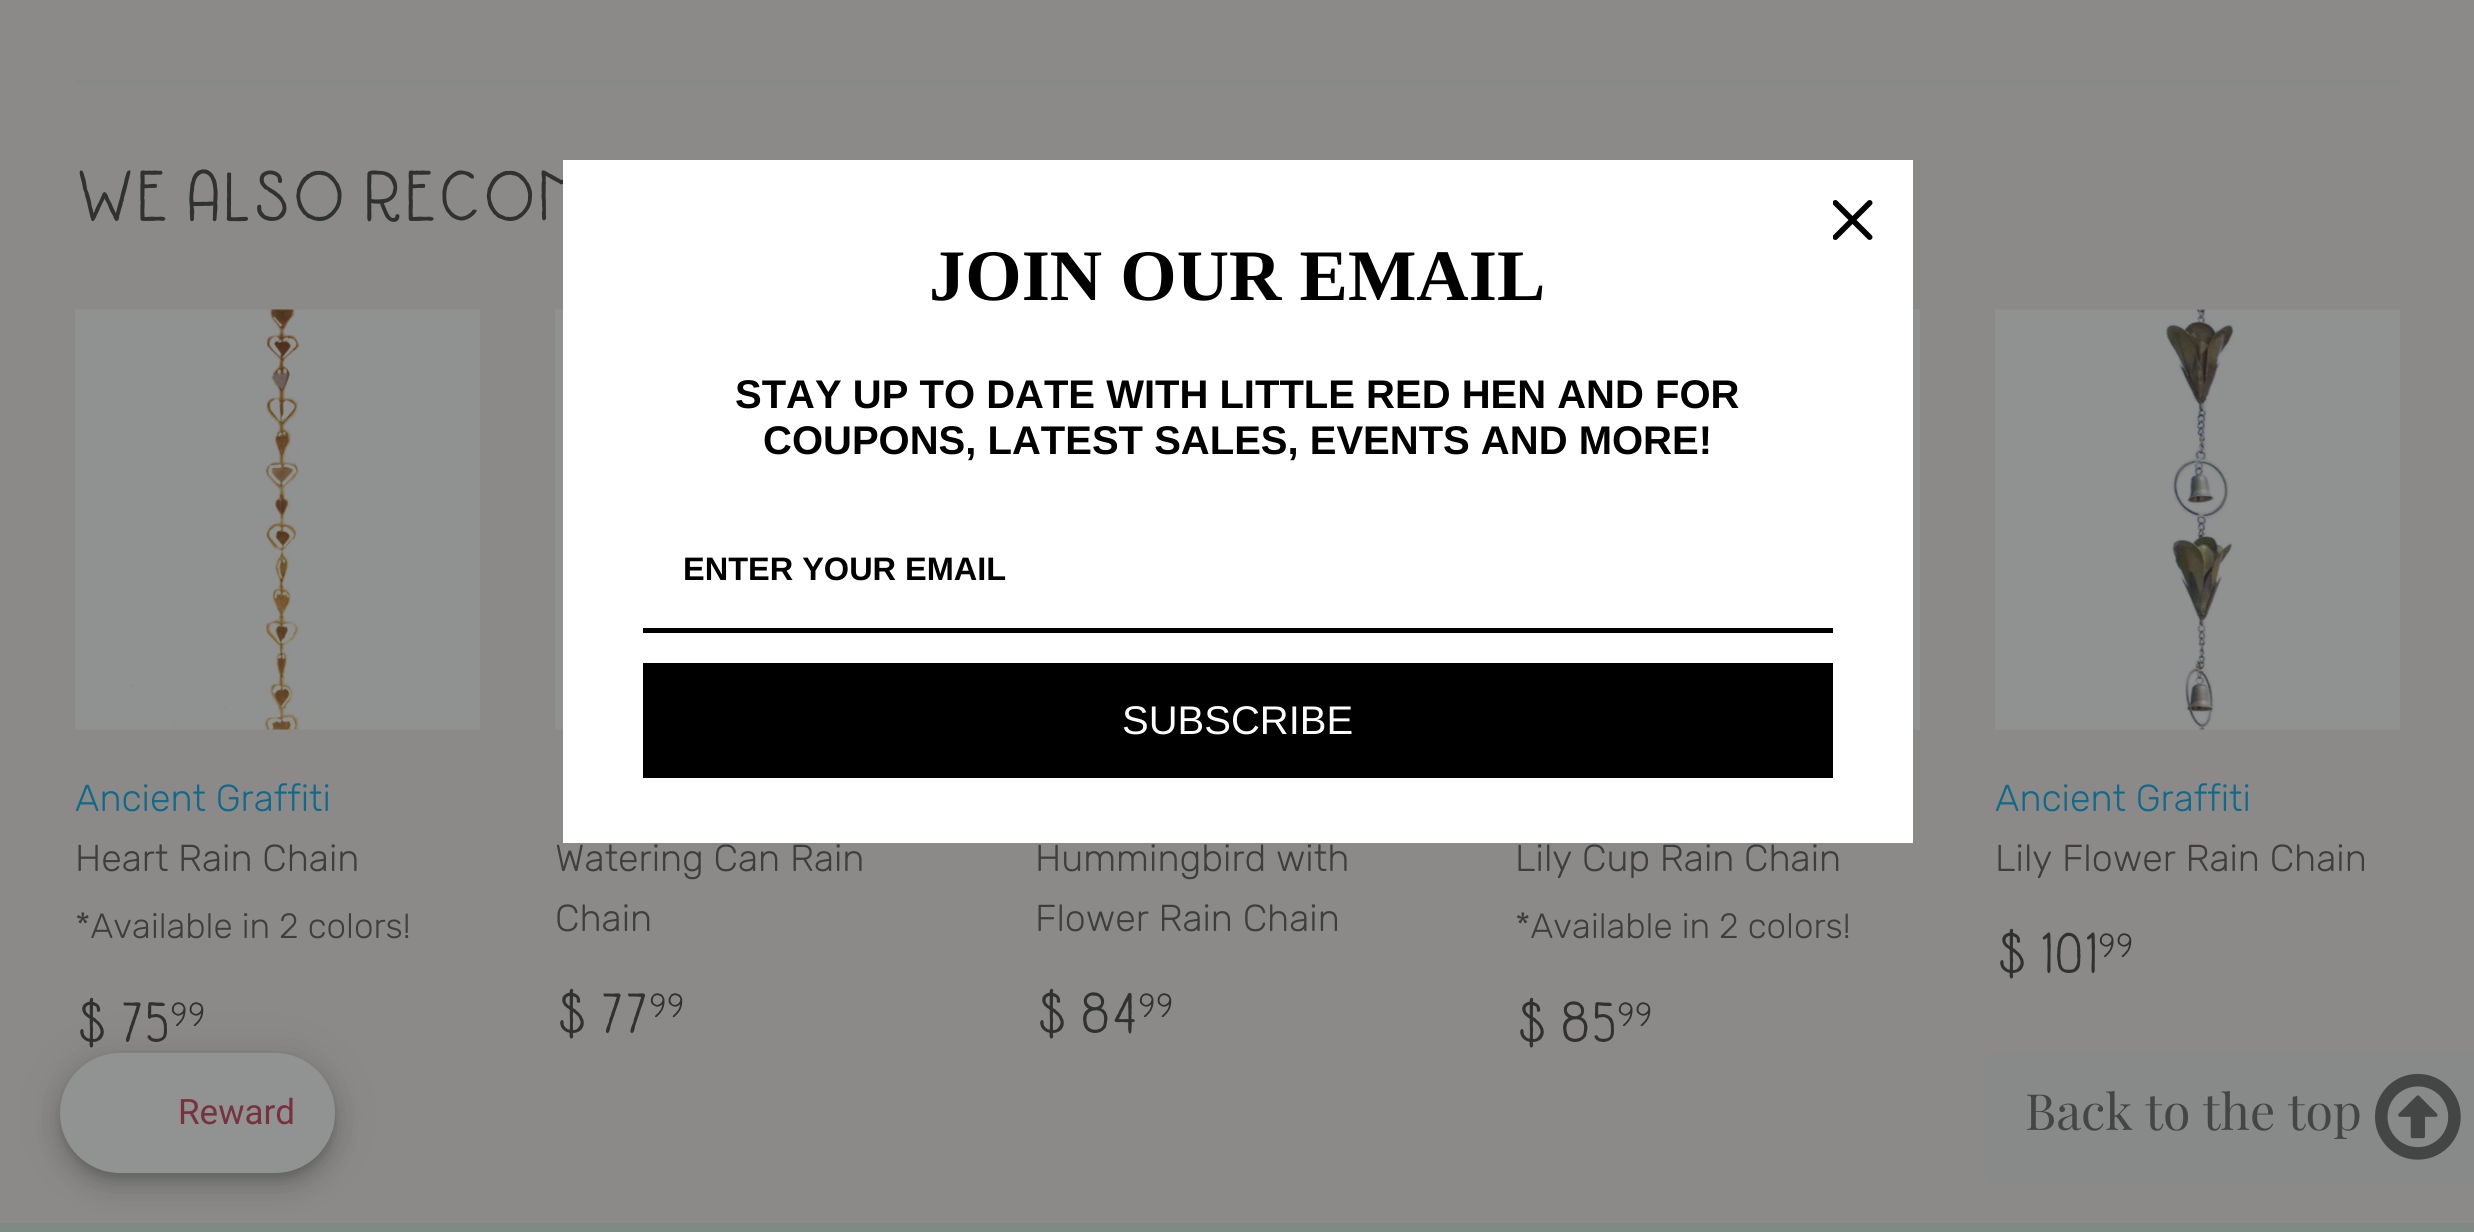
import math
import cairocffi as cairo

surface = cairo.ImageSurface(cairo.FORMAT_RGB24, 2474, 1232)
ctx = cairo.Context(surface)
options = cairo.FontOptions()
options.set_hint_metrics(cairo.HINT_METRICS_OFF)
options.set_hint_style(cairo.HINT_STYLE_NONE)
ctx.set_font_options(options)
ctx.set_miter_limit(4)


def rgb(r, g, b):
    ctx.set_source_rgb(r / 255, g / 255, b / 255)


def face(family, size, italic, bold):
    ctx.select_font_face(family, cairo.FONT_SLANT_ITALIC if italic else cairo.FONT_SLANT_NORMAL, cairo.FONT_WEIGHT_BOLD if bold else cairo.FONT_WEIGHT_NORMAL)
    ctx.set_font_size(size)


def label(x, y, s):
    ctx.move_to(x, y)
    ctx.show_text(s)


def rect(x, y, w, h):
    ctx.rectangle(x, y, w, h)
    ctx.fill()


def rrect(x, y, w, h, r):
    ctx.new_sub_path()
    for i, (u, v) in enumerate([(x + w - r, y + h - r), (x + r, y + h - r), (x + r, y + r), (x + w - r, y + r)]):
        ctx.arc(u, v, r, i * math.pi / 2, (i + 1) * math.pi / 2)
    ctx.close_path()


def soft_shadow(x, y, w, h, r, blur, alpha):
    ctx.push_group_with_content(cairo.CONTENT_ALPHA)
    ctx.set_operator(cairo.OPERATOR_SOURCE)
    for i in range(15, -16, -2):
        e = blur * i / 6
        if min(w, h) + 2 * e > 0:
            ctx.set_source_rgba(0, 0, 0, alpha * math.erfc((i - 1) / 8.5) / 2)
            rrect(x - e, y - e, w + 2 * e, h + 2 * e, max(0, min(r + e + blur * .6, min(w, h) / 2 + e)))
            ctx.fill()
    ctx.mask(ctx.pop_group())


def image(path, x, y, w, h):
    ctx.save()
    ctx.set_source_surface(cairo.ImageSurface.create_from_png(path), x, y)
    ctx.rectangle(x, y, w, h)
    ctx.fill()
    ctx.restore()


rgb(139, 138, 136)
ctx.paint()
rgb(135, 136, 136)
rect(75, 80, 2325, 3)
face('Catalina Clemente', 65, 0, 1)
rgb(48, 49, 49)
label(75, 221, 'WE ALSO RECOM')
image('image0.png', 75, 309, 405, 421)
face('Rubik Light', 37.5, 0, 0)
rgb(17, 105, 138)
label(75, 811, 'Ancient Graffiti')
rgb(61, 62, 62)
label(75, 871, 'Heart Rain Chain')
face('Rubik Light', 35, 0, 0)
label(75, 938, '*Available in 2 colors!')
face('Catalina Clemente', 52, 0, 1)
rgb(48, 49, 49)
label(75, 1042, '$ 75')
face('Catalina Clemente', 31, 0, 1)
label(170, 1026, '99')
image('image1.png', 555, 309, 8, 421)
face('Rubik Light', 37.5, 0, 0)
rgb(61, 62, 62)
label(555, 871, 'Watering Can Rain')
label(555, 931, 'Chain')
face('Catalina Clemente', 52, 0, 1)
rgb(48, 49, 49)
label(555, 1033, '$ 77')
face('Catalina Clemente', 31, 0, 1)
label(649, 1017, '99')
face('Rubik Light', 37.5, 0, 0)
rgb(61, 62, 62)
label(1035, 871, 'Hummingbird with')
label(1035, 931, 'Flower Rain Chain')
face('Catalina Clemente', 52, 0, 1)
rgb(48, 49, 49)
label(1035, 1033, '$ 84')
face('Catalina Clemente', 31, 0, 1)
label(1138, 1017, '99')
image('image2.png', 1913, 309, 7, 421)
face('Rubik Light', 37.5, 0, 0)
rgb(61, 62, 62)
label(1515, 871, 'Lily Cup Rain Chain')
face('Rubik Light', 35, 0, 0)
label(1515, 938, '*Available in 2 colors!')
face('Catalina Clemente', 52, 0, 1)
rgb(48, 49, 49)
label(1515, 1042, '$ 85')
face('Catalina Clemente', 31, 0, 1)
label(1617, 1026, '99')
image('image3.png', 1995, 309, 405, 421)
face('Rubik Light', 37.5, 0, 0)
rgb(17, 105, 138)
label(1995, 811, 'Ancient Graffiti')
rgb(61, 62, 62)
label(1995, 871, 'Lily Flower Rain Chain')
face('Catalina Clemente', 52, 0, 1)
rgb(48, 49, 49)
label(1995, 973, '$ 101')
face('Catalina Clemente', 31, 0, 1)
label(2098, 957, '99')
rgb(255, 255, 255)
rect(563, 160, 1350, 683)
image('image4.png', 1833, 200, 40, 40)
face('Liberation Serif', 72.5, 0, 1)
rgb(0, 0, 0)
label(929, 300, 'JOIN OUR EMAIL')
face('Liberation Sans', 40, 0, 1)
label(735, 408, 'STAY UP TO DATE WITH LITTLE RED HEN AND FOR')
label(763, 454, 'COUPONS, LATEST SALES, EVENTS AND MORE!')
rect(643, 628, 1190, 5)
face('Liberation Sans', 32.5, 0, 1)
label(683, 580, 'ENTER YOUR EMAIL')
rect(643, 663, 1190, 115)
face('Liberation Sans', 40, 0, 0)
rgb(255, 255, 255)
label(1122, 734, 'SUBSCRIBE')
rgb(127, 137, 134)
rect(0, 1223, 2474, 9)
rgb(17, 18, 18)
soft_shadow(60, 1055, 275, 120, 60, 22.5, 0.12)
soft_shadow(60, 1068, 275, 120, 60, 12.5, 0.14)
soft_shadow(63, 1063, 270, 115, 57.5, 6, 0.2)
rgb(145, 146, 146)
rrect(60, 1053, 275, 120, 60)
ctx.fill()
face('Roboto', 35, 0, 0)
rgb(120, 50, 63)
label(178, 1124, 'Reward')
rgb(136, 137, 137)
ctx.new_path()
ctx.move_to(1993, 1053)
ctx.line_to(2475, 1053)
ctx.line_to(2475, 1183)
ctx.line_to(1993, 1183)
ctx.curve_to(1988.5, 1183, 1985, 1179.5, 1985, 1175)
ctx.line_to(1985, 1061)
ctx.curve_to(1985, 1056.5, 1988.5, 1053, 1993, 1053)
ctx.close_path()
ctx.fill()
face('Playfair Display', 50, 0, 0)
rgb(68, 69, 69)
label(2025, 1130, 'Back to the top')
image('image5.png', 2375, 1073, 86, 87)
surface.write_to_png('render.png')
